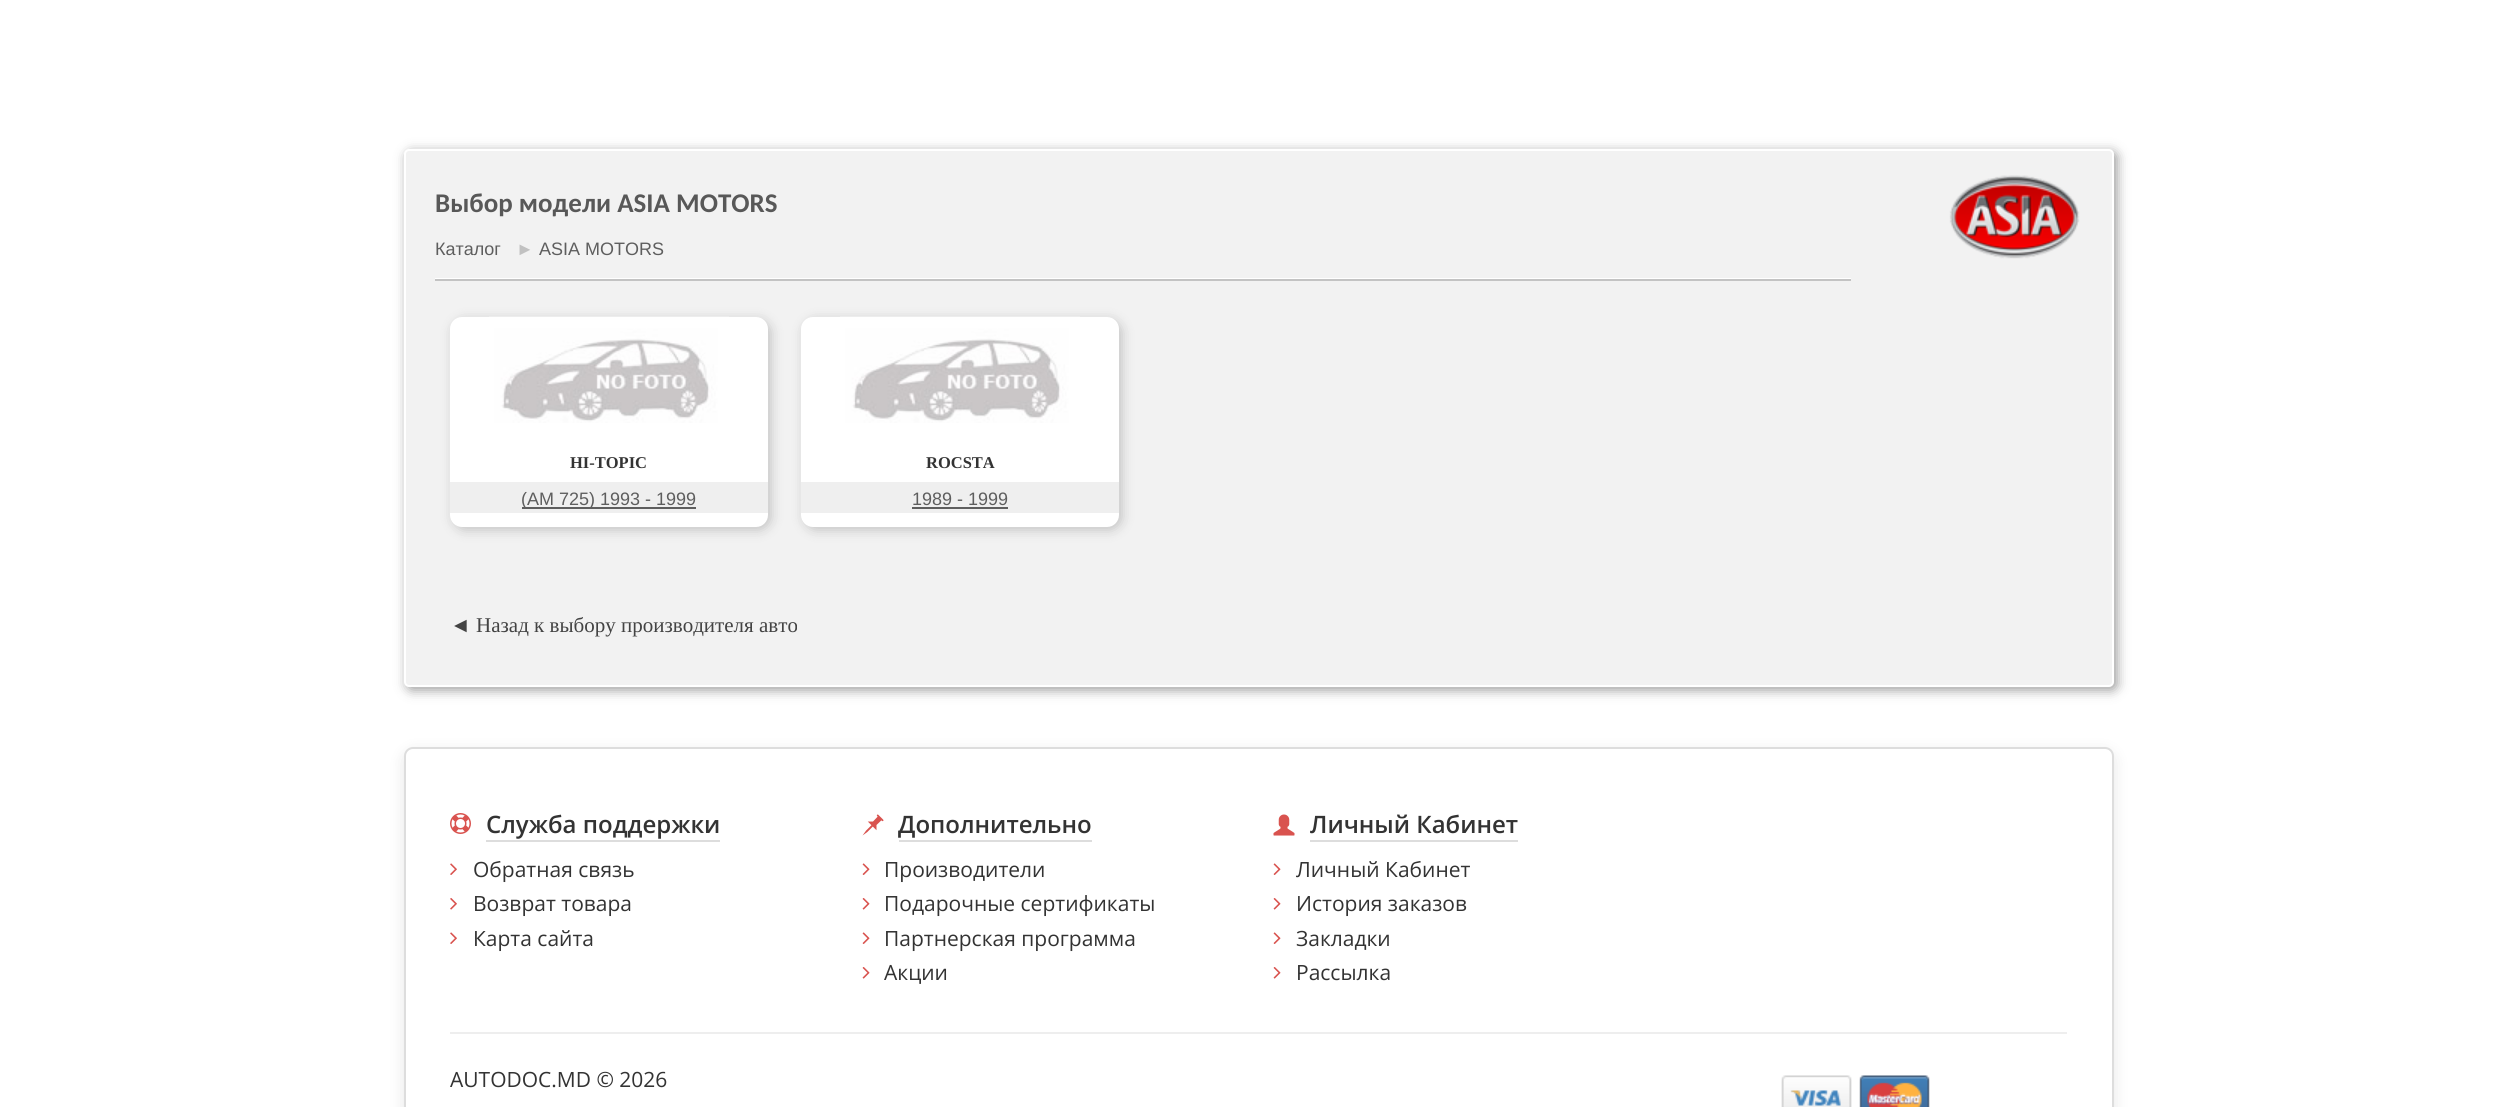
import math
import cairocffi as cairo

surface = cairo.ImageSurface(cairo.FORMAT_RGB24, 2517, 1107)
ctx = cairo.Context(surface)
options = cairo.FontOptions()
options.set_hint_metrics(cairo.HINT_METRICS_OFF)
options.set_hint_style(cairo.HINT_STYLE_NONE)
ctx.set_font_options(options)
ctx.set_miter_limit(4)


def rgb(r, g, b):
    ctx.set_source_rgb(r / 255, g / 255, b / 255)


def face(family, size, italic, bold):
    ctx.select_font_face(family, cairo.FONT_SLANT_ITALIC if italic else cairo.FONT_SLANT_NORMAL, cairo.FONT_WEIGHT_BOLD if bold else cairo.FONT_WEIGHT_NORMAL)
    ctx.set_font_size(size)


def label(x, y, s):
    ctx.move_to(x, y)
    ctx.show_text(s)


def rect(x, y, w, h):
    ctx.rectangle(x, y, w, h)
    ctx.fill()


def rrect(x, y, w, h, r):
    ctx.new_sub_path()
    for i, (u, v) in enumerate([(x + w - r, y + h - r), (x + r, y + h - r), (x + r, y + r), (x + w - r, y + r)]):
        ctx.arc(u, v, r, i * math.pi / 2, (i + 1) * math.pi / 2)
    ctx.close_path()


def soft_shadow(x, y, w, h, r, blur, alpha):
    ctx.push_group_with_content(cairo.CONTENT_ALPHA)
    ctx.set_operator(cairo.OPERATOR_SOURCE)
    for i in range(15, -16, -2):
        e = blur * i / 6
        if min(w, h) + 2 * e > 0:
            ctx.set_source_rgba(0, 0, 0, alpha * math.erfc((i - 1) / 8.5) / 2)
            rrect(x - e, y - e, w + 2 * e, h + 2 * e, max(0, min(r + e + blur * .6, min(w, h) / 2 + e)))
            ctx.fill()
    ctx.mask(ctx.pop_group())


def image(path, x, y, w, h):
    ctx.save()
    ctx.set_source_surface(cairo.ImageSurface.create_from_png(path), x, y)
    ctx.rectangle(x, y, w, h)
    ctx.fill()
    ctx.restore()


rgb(255, 255, 255)
ctx.paint()
rgb(0, 0, 0)
soft_shadow(407, 152, 1710, 538, 5, 6, 0.4)
rgb(242, 242, 242)
rrect(405, 150, 1708, 536, 4)
ctx.fill_preserve()
rgb(255, 255, 255)
ctx.stroke()
face('Carlito', 27, 0, 1)
rgb(88, 88, 88)
label(435, 212, 'Выбор модели ASIA MOTORS')
image('image0.png', 1949, 175, 131, 84)
face('Liberation Sans', 18, 0, 0)
rgb(94, 94, 94)
label(435, 255, 'Каталог')
rgb(193, 193, 193)
label(516, 255, '►')
rgb(94, 94, 94)
label(539, 255, 'ASIA MOTORS')
rgb(255, 255, 255)
rect(435, 278, 1416, 1)
rgb(195, 195, 195)
rect(435, 279, 1416, 2)
rgb(0, 0, 0)
soft_shadow(453, 320, 318, 210, 12, 6, 0.2)
rgb(255, 255, 255)
rrect(450, 317, 318, 210, 12)
ctx.fill()
image('image1.png', 489, 316, 240, 107)
face('Liberation Serif', 16.5, 0, 1)
rgb(51, 51, 51)
label(570, 468, 'HI-TOPIC')
rgb(239, 239, 239)
rect(450, 482, 318, 31)
rgb(94, 94, 94)
rect(522, 507, 174, 2)
face('Liberation Sans', 18, 0, 0)
label(521, 505, '(AM 725) 1993 - 1999')
rgb(0, 0, 0)
soft_shadow(804, 320, 318, 210, 12, 6, 0.2)
rgb(255, 255, 255)
rrect(801, 317, 318, 210, 12)
ctx.fill()
image('image2.png', 840, 316, 240, 107)
face('Liberation Serif', 16.5, 0, 1)
rgb(51, 51, 51)
label(926, 468, 'ROCSTA')
rgb(239, 239, 239)
rect(801, 482, 318, 31)
face('Liberation Sans', 18, 0, 0)
rgb(94, 94, 94)
label(912, 505, '1989 - 1999')
rect(912, 507, 96, 2)
face('Liberation Serif', 21, 0, 0)
rgb(67, 67, 67)
label(450, 632, '◄ Назад к выбору производителя авто')
rgb(0, 0, 0)
soft_shadow(404, 752, 1710, 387, 9, 7.5, 0.1)
rgb(255, 255, 255)
rrect(405, 748, 1708, 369, 8)
ctx.fill_preserve()
rgb(221, 221, 221)
ctx.stroke()
image('image3.png', 450, 813, 21, 21)
face('Open Sans SemiBold', 24, 0, 0)
rgb(51, 51, 51)
label(486, 833, 'Служба поддержки')
rgb(221, 221, 221)
rect(486, 840, 234, 2)
image('image4.png', 450, 863, 7, 12)
face('Open Sans', 21, 0, 0)
rgb(51, 51, 51)
label(473, 877, 'Обратная связь')
image('image5.png', 450, 898, 7, 12)
label(473, 911, 'Возврат товара')
image('image4.png', 450, 932, 7, 12)
label(473, 946, 'Карта сайта')
image('image6.png', 862, 814, 22, 22)
face('Open Sans SemiBold', 24, 0, 0)
label(898, 833, 'Дополнительно')
rgb(221, 221, 221)
rect(899, 840, 193, 2)
image('image7.png', 862, 863, 8, 12)
face('Open Sans', 21, 0, 0)
rgb(51, 51, 51)
label(884, 877, 'Производители')
image('image8.png', 862, 898, 8, 12)
label(884, 911, 'Подарочные сертификаты')
image('image7.png', 862, 932, 8, 12)
label(884, 946, 'Партнерская программа')
image('image8.png', 862, 967, 8, 12)
label(884, 980, 'Акции')
image('image9.png', 1273, 814, 22, 22)
face('Open Sans SemiBold', 24, 0, 0)
label(1310, 833, 'Личный Кабинет')
rgb(221, 221, 221)
rect(1310, 840, 208, 2)
image('image7.png', 1273, 863, 8, 12)
face('Open Sans', 21, 0, 0)
rgb(51, 51, 51)
label(1296, 877, 'Личный Кабинет')
image('image8.png', 1273, 898, 8, 12)
label(1296, 911, 'История заказов')
image('image7.png', 1273, 932, 8, 12)
label(1296, 946, 'Закладки')
image('image8.png', 1273, 967, 8, 12)
label(1296, 980, 'Рассылка')
rgb(238, 238, 238)
rect(450, 1032, 1617, 2)
rgb(51, 51, 51)
label(450, 1087, 'AUTODOC.MD © 2026')
image('image10.png', 1781, 1075, 71, 32)
image('image11.png', 1859, 1075, 71, 32)
surface.write_to_png('render.png')
